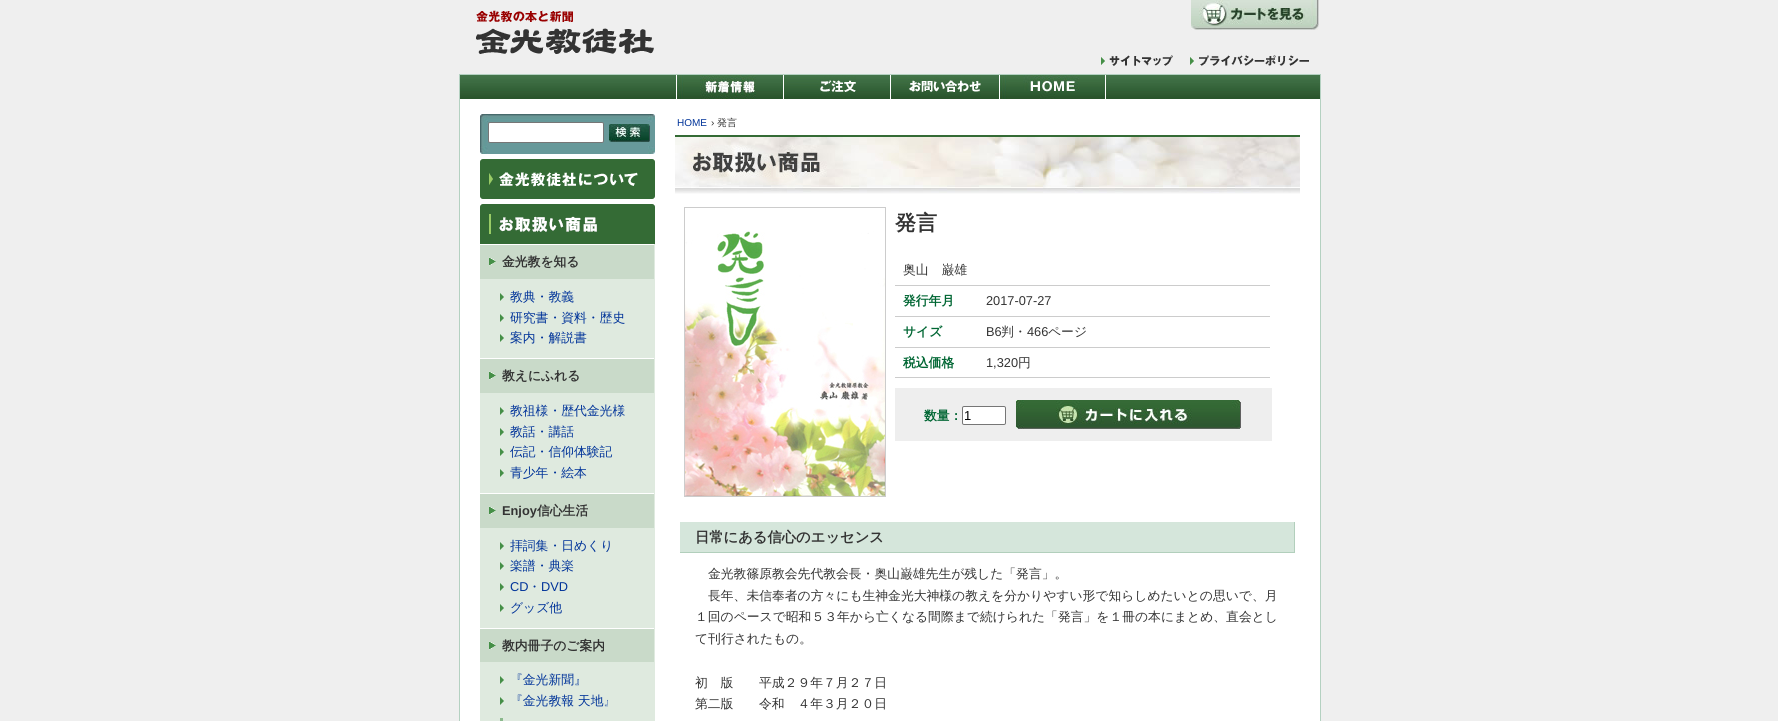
import math
import cairocffi as cairo

surface = cairo.ImageSurface(cairo.FORMAT_RGB24, 1778, 721)
ctx = cairo.Context(surface)
options = cairo.FontOptions()
options.set_hint_metrics(cairo.HINT_METRICS_OFF)
options.set_hint_style(cairo.HINT_STYLE_NONE)
ctx.set_font_options(options)
ctx.set_miter_limit(4)


def rgb(r, g, b):
    ctx.set_source_rgb(r / 255, g / 255, b / 255)


def face(family, size, italic, bold):
    ctx.select_font_face(family, cairo.FONT_SLANT_ITALIC if italic else cairo.FONT_SLANT_NORMAL, cairo.FONT_WEIGHT_BOLD if bold else cairo.FONT_WEIGHT_NORMAL)
    ctx.set_font_size(size)


def label(x, y, s):
    ctx.move_to(x, y)
    ctx.show_text(s)


def rect(x, y, w, h):
    ctx.rectangle(x, y, w, h)
    ctx.fill()


def rrect(x, y, w, h, r):
    ctx.new_sub_path()
    for i, (u, v) in enumerate([(x + w - r, y + h - r), (x + r, y + h - r), (x + r, y + r), (x + w - r, y + r)]):
        ctx.arc(u, v, r, i * math.pi / 2, (i + 1) * math.pi / 2)
    ctx.close_path()


def image(path, x, y, w, h):
    ctx.save()
    ctx.set_source_surface(cairo.ImageSurface.create_from_png(path), x, y)
    ctx.rectangle(x, y, w, h)
    ctx.fill()
    ctx.restore()


rgb(239, 239, 239)
ctx.paint()
image('image0.png', 476, 10, 178, 44)
image('image1.png', 1191, 0, 128, 30)
image('image2.png', 1101, 55, 72, 11)
image('image3.png', 1190, 55, 119, 11)
rgb(255, 255, 255)
rect(460, 99, 860, 622)
ctx.rectangle(459.5, 74.5, 861, 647)
rgb(180, 209, 193)
ctx.set_line_width(1)
ctx.stroke()
image('image4.png', 460, 75, 860, 24)
image('image5.png', 676, 75, 80, 24)
image('image6.png', 783, 75, 73, 24)
image('image7.png', 890, 75, 91, 24)
image('image8.png', 999, 75, 107, 24)
image('image9.png', 480, 114, 175, 40)
rgb(255, 255, 255)
rrect(488.5, 122.5, 115, 20, 1.5)
ctx.fill_preserve()
rgb(118, 118, 118)
ctx.stroke()
image('image10.png', 609, 124, 41, 18)
image('image11.png', 480, 159, 175, 40)
image('image12.png', 480, 204, 175, 40)
rgb(223, 234, 223)
rect(480, 244, 175, 477)
rgb(201, 218, 201)
rect(480, 245, 174, 34)
image('image13.png', 489, 257, 7, 9)
rgb(255, 255, 255)
rect(480, 244, 174, 1)
face('WenQuanYi Zen Hei', 12.8, 0, 1)
rgb(51, 51, 51)
label(502, 266, '金光教を知る')
image('image14.png', 500, 293, 4, 8)
face('WenQuanYi Zen Hei Medium', 12.8, 0, 0)
rgb(0, 51, 153)
label(510, 301, '教典・教義')
image('image14.png', 500, 314, 4, 8)
label(510, 322, '研究書・資料・歴史')
image('image14.png', 500, 334, 4, 8)
label(510, 342, '案内・解説書')
rgb(201, 218, 201)
rect(480, 359, 174, 34)
image('image13.png', 489, 371, 7, 9)
rgb(255, 255, 255)
rect(480, 358, 174, 1)
face('WenQuanYi Zen Hei', 12.8, 0, 1)
rgb(51, 51, 51)
label(502, 380, '教えにふれる')
image('image14.png', 500, 407, 4, 8)
face('WenQuanYi Zen Hei Medium', 12.8, 0, 0)
rgb(0, 51, 153)
label(510, 415, '教祖様・歴代金光様')
image('image14.png', 500, 428, 4, 8)
label(510, 436, '教話・講話')
image('image14.png', 500, 448, 4, 8)
label(510, 456, '伝記・信仰体験記')
image('image14.png', 500, 469, 4, 8)
label(510, 477, '青少年・絵本')
rgb(201, 218, 201)
rect(480, 494, 174, 34)
image('image13.png', 489, 506, 7, 9)
rgb(255, 255, 255)
rect(480, 493, 174, 1)
face('Liberation Sans', 12.8, 0, 1)
rgb(51, 51, 51)
label(502, 515, 'Enjoy')
face('WenQuanYi Zen Hei', 12.8, 0, 1)
label(537, 515, '信心生活')
image('image14.png', 500, 542, 4, 8)
face('WenQuanYi Zen Hei Medium', 12.8, 0, 0)
rgb(0, 51, 153)
label(510, 550, '拝詞集・日めくり')
image('image14.png', 500, 562, 4, 8)
label(510, 570, '楽譜・典楽')
image('image14.png', 500, 583, 4, 8)
face('Liberation Sans', 12.8, 0, 0)
label(510, 591, 'CD')
face('WenQuanYi Zen Hei Medium', 12.8, 0, 0)
label(528, 591, '・')
face('Liberation Sans', 12.8, 0, 0)
label(541, 591, 'DVD')
image('image14.png', 500, 604, 4, 8)
face('WenQuanYi Zen Hei Medium', 12.8, 0, 0)
label(510, 612, 'グッズ他')
rgb(201, 218, 201)
rect(480, 629, 174, 33)
image('image13.png', 489, 641, 7, 9)
rgb(255, 255, 255)
rect(480, 628, 174, 1)
face('WenQuanYi Zen Hei', 12.8, 0, 1)
rgb(51, 51, 51)
label(502, 650, '教内冊子のご案内')
image('image14.png', 500, 676, 4, 8)
face('WenQuanYi Zen Hei Medium', 12.8, 0, 0)
rgb(0, 51, 153)
label(510, 684, '『金光新聞』')
image('image14.png', 500, 697, 4, 8)
label(510, 705, '『金光教報 天地』')
rgb(139, 185, 140)
rect(500, 718, 3, 3)
face('Liberation Sans', 10, 0, 0)
rgb(0, 51, 153)
label(677, 126, 'HOME')
rgb(51, 51, 51)
label(711, 126, '›')
face('WenQuanYi Zen Hei Medium', 10, 0, 0)
label(717, 126, '発言')
rgb(52, 107, 53)
rect(675, 135, 625, 2)
image('image15.png', 675, 137, 625, 57)
ctx.rectangle(684.5, 207.5, 201, 289)
rgb(204, 204, 204)
ctx.stroke()
image('image16.png', 685, 231, 200, 265)
face('WenQuanYi Zen Hei', 21, 0, 1)
rgb(51, 51, 51)
label(895, 230, '発言')
rgb(204, 204, 204)
rect(895, 285, 375, 1)
face('WenQuanYi Zen Hei Medium', 12.8, 0, 0)
rgb(51, 51, 51)
label(903, 274, '奥山　巌雄')
rgb(204, 204, 204)
rect(895, 316, 375, 1)
face('WenQuanYi Zen Hei', 12.8, 0, 1)
rgb(0, 102, 51)
label(903, 305, '発行年月')
face('Liberation Sans', 12.8, 0, 0)
rgb(51, 51, 51)
label(986, 305, '2017-07-27')
rgb(204, 204, 204)
rect(895, 347, 375, 1)
face('WenQuanYi Zen Hei', 12.8, 0, 1)
rgb(0, 102, 51)
label(903, 336, 'サイズ')
face('Liberation Sans', 12.8, 0, 0)
rgb(51, 51, 51)
label(986, 336, 'B6')
face('WenQuanYi Zen Hei Medium', 12.8, 0, 0)
label(1001, 336, '判・')
face('Liberation Sans', 12.8, 0, 0)
label(1027, 336, '466')
face('WenQuanYi Zen Hei Medium', 12.8, 0, 0)
label(1048, 336, 'ページ')
rgb(204, 204, 204)
rect(895, 377, 375, 1)
face('WenQuanYi Zen Hei', 12.8, 0, 1)
rgb(0, 102, 51)
label(903, 367, '税込価格')
face('Liberation Sans', 12.8, 0, 0)
rgb(51, 51, 51)
label(986, 367, '1,320')
face('WenQuanYi Zen Hei Medium', 12.8, 0, 0)
label(1018, 367, '円')
rgb(238, 238, 238)
rect(895, 388, 377, 53)
face('WenQuanYi Zen Hei', 12.8, 0, 1)
rgb(0, 102, 51)
label(924, 420, '数量：')
rgb(255, 255, 255)
rrect(962.5, 406.5, 43, 18, 1.5)
ctx.fill_preserve()
rgb(118, 118, 118)
ctx.stroke()
face('Liberation Sans', 13, 0, 0)
rgb(0, 0, 0)
label(964, 420, '1')
image('image17.png', 1016, 400, 225, 29)
rgb(213, 230, 219)
rect(680, 522, 614, 30)
rgb(178, 207, 188)
rect(1294, 522, 1, 31)
rect(680, 552, 615, 1)
face('WenQuanYi Zen Hei', 14.3, 0, 1)
rgb(51, 51, 51)
label(695, 542, '日常にある信心のエッセンス')
face('WenQuanYi Zen Hei Medium', 12.8, 0, 0)
label(708, 578, '金光教篠原教会先代教会長・奥山巌雄先生が残した「発言」。')
label(708, 600, '長年、未信奉者の方々にも生神金光大神様の教えを分かりやすい形で知らしめたいとの思いで、月')
label(695, 621, '１回のペースで昭和５３年から亡くなる間際まで続けられた「発言」を１冊の本にまとめ、直会とし')
label(695, 643, 'て刊行されたもの。')
label(695, 687, '初　版　　平成２９年７月２７日')
label(695, 708, '第二版　　令和　４年３月２０日')
surface.write_to_png('render.png')
